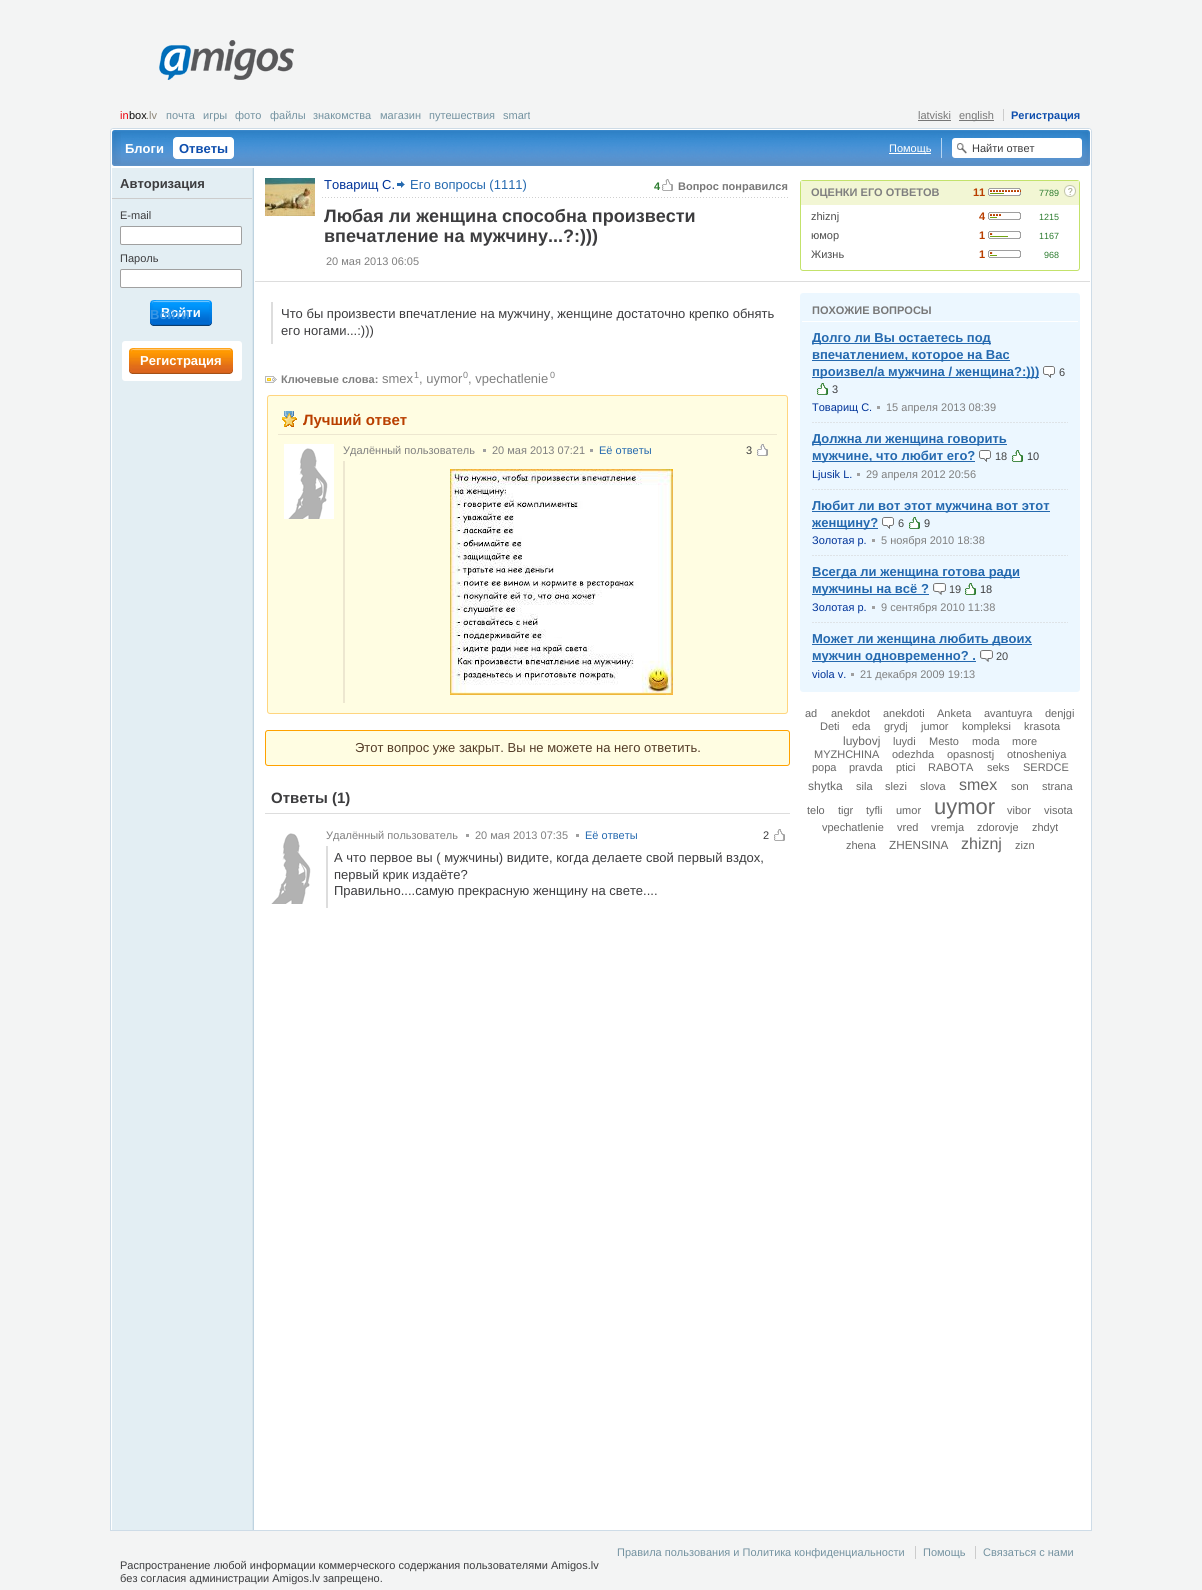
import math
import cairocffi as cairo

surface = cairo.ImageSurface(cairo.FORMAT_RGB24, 1202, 1590)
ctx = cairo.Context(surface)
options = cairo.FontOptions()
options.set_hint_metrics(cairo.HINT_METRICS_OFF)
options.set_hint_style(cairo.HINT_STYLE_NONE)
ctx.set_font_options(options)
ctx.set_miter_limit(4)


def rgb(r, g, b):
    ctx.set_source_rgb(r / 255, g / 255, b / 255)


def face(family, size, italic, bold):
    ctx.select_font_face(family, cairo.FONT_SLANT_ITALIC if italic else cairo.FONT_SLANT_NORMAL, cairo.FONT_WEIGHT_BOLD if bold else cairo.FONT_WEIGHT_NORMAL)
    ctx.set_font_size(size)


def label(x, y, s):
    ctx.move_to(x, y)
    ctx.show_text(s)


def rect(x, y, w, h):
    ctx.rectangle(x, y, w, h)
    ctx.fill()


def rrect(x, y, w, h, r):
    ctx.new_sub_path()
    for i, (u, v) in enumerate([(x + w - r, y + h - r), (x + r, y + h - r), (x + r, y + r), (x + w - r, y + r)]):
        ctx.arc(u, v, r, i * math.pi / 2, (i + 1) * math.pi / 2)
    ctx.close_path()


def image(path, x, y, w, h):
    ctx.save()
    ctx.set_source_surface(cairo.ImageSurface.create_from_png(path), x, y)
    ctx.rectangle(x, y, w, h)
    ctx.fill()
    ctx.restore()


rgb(243, 244, 244)
ctx.paint()
rgb(255, 255, 255)
rect(111, 166, 980, 1364)
image('image0.png', 112, 168, 142, 1362)
rgb(206, 220, 231)
rect(1091, 166, 1, 1364)
rect(110, 166, 1, 1364)
image('image1.png', 159, 40, 135, 40)
face('Liberation Sans', 11, 0, 0)
rgb(235, 0, 12)
label(120, 119, 'in')
rgb(13, 12, 11)
label(129, 119, 'box')
rgb(141, 133, 119)
label(146, 119, '.lv')
rgb(115, 146, 160)
label(166, 119, 'почта')
label(203, 119, 'игры')
label(235, 119, 'фото')
label(270, 119, 'файлы')
label(313, 119, 'знакомства')
label(380, 119, 'магазин')
label(429, 119, 'путешествия')
label(503, 119, 'smart')
rgb(119, 119, 119)
label(918, 119, 'latviski')
rect(918, 120, 33, 1)
rect(959, 120, 35, 1)
label(959, 119, 'english')
face('Liberation Sans', 11, 0, 1)
rgb(14, 78, 173)
label(1011, 119, 'Регистрация')
rgb(204, 204, 204)
rect(1003, 109, 1, 12)
image('image2.png', 121, 128, 959, 38)
image('image3.png', 110, 128, 11, 38)
face('Liberation Sans', 13, 0, 1)
rgb(255, 255, 255)
label(125, 153, 'Блоги')
rrect(173.5, 137.5, 60, 21, 3.5)
ctx.fill_preserve()
ctx.set_line_width(1)
ctx.stroke()
rgb(14, 78, 173)
label(179, 153, 'Ответы')
rgb(255, 255, 255)
rect(889, 153, 42, 1)
face('Liberation Sans', 11, 0, 0)
label(889, 152, 'Помощь')
image('image4.png', 1080, 128, 12, 38)
rgb(181, 212, 241)
rect(941, 138, 1, 20)
rgb(255, 255, 255)
rrect(952, 138, 130, 20, 3)
ctx.fill()
image('image5.png', 957, 143, 10, 11)
rgb(60, 60, 62)
label(972, 152, 'Найти ответ')
rgb(227, 238, 243)
ctx.new_path()
ctx.move_to(112, 930)
ctx.line_to(112, 166)
ctx.line_to(252, 168)
ctx.line_to(252, 930)
ctx.close_path()
ctx.fill()
rgb(255, 255, 255)
rect(111, 166, 141, 2)
rgb(204, 204, 204)
rect(112, 198, 140, 1)
face('Liberation Sans', 13, 0, 1)
rgb(60, 60, 62)
label(120, 188, 'Авторизация')
face('Liberation Sans', 11, 0, 0)
label(120, 219, 'E-mail')
rgb(255, 255, 255)
rrect(120.5, 226.5, 121, 18, 1.5)
ctx.fill_preserve()
rgb(160, 160, 160)
ctx.stroke()
rgb(60, 60, 62)
label(120, 262, 'Пароль')
rgb(255, 255, 255)
rrect(120.5, 269.5, 121, 18, 1.5)
ctx.fill_preserve()
rgb(160, 160, 160)
ctx.stroke()
image('image6.png', 209, 300, 3, 26)
image('image7.png', 150, 300, 59, 26)
face('Liberation Sans', 13, 0, 1)
rgb(255, 255, 255)
label(161, 317, 'Войти')
rgb(57, 151, 230)
label(150, 319, 'Войти')
rgb(255, 255, 255)
rrect(122, 341, 120, 40, 3)
ctx.fill()
image('image8.png', 230, 348, 3, 26)
image('image9.png', 129, 348, 101, 26)
label(140, 365, 'Регистрация')
rgb(221, 221, 221)
rect(255, 281, 835, 1)
image('image10.png', 265, 178, 50, 38)
face('Liberation Sans', 13, 0, 0)
rgb(0, 51, 153)
label(324, 189, 'Товарищ С.')
image('image11.png', 397, 181, 8, 7)
rgb(36, 105, 175)
label(410, 189, 'Его вопросы (1111)')
face('Liberation Sans', 11, 0, 1)
rgb(44, 124, 47)
label(654, 190, '4')
image('image12.png', 662, 179, 11, 12)
rgb(119, 119, 119)
label(678, 190, 'Вопрос понравился')
image('image13.png', 322, 197, 466, 1)
face('Liberation Sans', 18, 0, 1)
rgb(60, 60, 62)
label(324, 222, 'Любая ли женщина способна произвести')
label(324, 242, 'впечатление на мужчину...?:)))')
face('Liberation Sans', 11, 0, 0)
rgb(127, 127, 127)
label(326, 265, '20 мая 2013 06:05')
rrect(800.5, 180.5, 279, 90, 2.5)
rgb(195, 226, 107)
ctx.stroke()
rgb(242, 246, 212)
rect(801, 181, 278, 24)
face('Liberation Sans', 11, 0, 1)
rgb(127, 127, 127)
label(811, 196, 'ОЦЕНКИ ЕГО ОТВЕТОВ')
rgb(185, 63, 0)
label(973, 196, '11')
image('image14.png', 988, 188, 33, 8)
image('image15.png', 990, 190, 31, 2)
rgb(113, 163, 18)
rect(990, 193, 14, 1)
face('Liberation Sans', 9, 0, 0)
rgb(44, 124, 47)
label(1039, 196, '7789')
image('image16.png', 1064, 185, 12, 12)
image('image17.png', 1065, 187, 6, 7)
face('Liberation Sans', 11, 0, 0)
rgb(77, 77, 77)
label(811, 220, 'zhiznj')
face('Liberation Sans', 11, 0, 1)
rgb(185, 63, 0)
label(979, 220, '4')
image('image18.png', 988, 212, 33, 8)
image('image19.png', 990, 214, 11, 2)
rgb(113, 163, 18)
rect(990, 217, 7, 1)
face('Liberation Sans', 9, 0, 0)
rgb(44, 124, 47)
label(1039, 220, '1215')
face('Liberation Sans', 11, 0, 0)
rgb(77, 77, 77)
label(811, 239, 'юмор')
face('Liberation Sans', 11, 0, 1)
rgb(185, 63, 0)
label(979, 239, '1')
image('image18.png', 988, 231, 33, 8)
image('image20.png', 990, 233, 3, 2)
rgb(113, 163, 18)
rect(990, 236, 18, 1)
face('Liberation Sans', 9, 0, 0)
rgb(44, 124, 47)
label(1039, 239, '1167')
face('Liberation Sans', 11, 0, 0)
rgb(77, 77, 77)
label(811, 258, 'Жизнь')
face('Liberation Sans', 11, 0, 1)
rgb(185, 63, 0)
label(979, 258, '1')
image('image18.png', 988, 250, 33, 8)
image('image20.png', 990, 252, 3, 2)
rgb(113, 163, 18)
rect(990, 255, 7, 1)
face('Liberation Sans', 9, 0, 0)
rgb(44, 124, 47)
label(1044, 258, '968')
rgb(221, 221, 221)
rect(271, 302, 2, 42)
face('Liberation Sans', 13, 0, 0)
rgb(60, 60, 62)
label(281, 318, 'Что бы произвести впечатление на мужчину, женщине достаточно крепко обнять')
label(281, 335, 'его ногами...:)))')
image('image21.png', 265, 376, 12, 7)
face('Liberation Sans', 11, 0, 1)
rgb(127, 127, 127)
label(281, 383, 'Ключевые слова:')
face('Liberation Sans', 13, 0, 0)
label(382, 383, 'smex')
face('Liberation Sans', 9, 0, 0)
label(414, 378, '1')
face('Liberation Sans', 13, 0, 0)
label(419, 383, ', uymor')
face('Liberation Sans', 9, 0, 0)
label(463, 378, '0')
face('Liberation Sans', 13, 0, 0)
label(468, 383, ', vpechatlenie')
face('Liberation Sans', 9, 0, 0)
label(550, 378, '0')
rgb(255, 253, 226)
rrect(267.5, 395.5, 520, 318, 2.5)
ctx.fill_preserve()
rgb(255, 213, 127)
ctx.stroke()
rgb(237, 231, 208)
rect(278, 434, 499, 1)
image('image22.png', 282, 411, 15, 16)
face('Liberation Sans', 15, 0, 1)
rgb(185, 63, 0)
label(303, 425, 'Лучший ответ')
image('image23.png', 284, 444, 50, 75)
face('Liberation Sans', 11, 0, 0)
rgb(127, 127, 127)
label(343, 454, 'Удалённый пользователь')
label(492, 454, '20 мая 2013 07:21')
rgb(159, 159, 159)
rect(483, 449, 3, 3)
rgb(36, 105, 175)
label(599, 454, 'Её ответы')
rgb(159, 159, 159)
rect(590, 449, 3, 3)
image('image24.png', 757, 444, 11, 12)
rgb(60, 60, 62)
label(746, 454, '3')
rgb(237, 231, 208)
rect(343, 461, 2, 242)
image('image25.png', 450, 469, 223, 226)
rgb(255, 253, 226)
rrect(265.5, 730.5, 524, 35, 2.5)
ctx.fill_preserve()
rgb(255, 162, 0)
ctx.stroke()
face('Liberation Sans', 13, 0, 0)
rgb(83, 59, 39)
label(355, 752, 'Этот вопрос уже закрыт. Вы не можете на него ответить.')
rgb(221, 221, 221)
rect(265, 813, 525, 1)
face('Liberation Sans', 15, 0, 1)
rgb(60, 60, 62)
label(271, 803, 'Ответы (1)')
image('image26.png', 271, 833, 40, 71)
face('Liberation Sans', 11, 0, 0)
rgb(127, 127, 127)
label(326, 839, 'Удалённый пользователь')
label(475, 839, '20 мая 2013 07:35')
rgb(159, 159, 159)
rect(466, 834, 3, 3)
rgb(36, 105, 175)
label(585, 839, 'Её ответы')
rgb(159, 159, 159)
rect(576, 834, 3, 3)
image('image27.png', 774, 829, 11, 12)
rgb(60, 60, 62)
label(763, 839, '2')
rgb(221, 221, 221)
rect(326, 846, 2, 62)
face('Liberation Sans', 13, 0, 0)
rgb(60, 60, 62)
label(334, 862, 'А что первое вы ( мужчины) видите, когда делаете свой первый вздох,')
label(334, 879, 'первый крик издаёте?')
label(334, 895, 'Правильно....самую прекрасную женщину на свете....')
rgb(236, 247, 255)
rrect(801, 294, 278, 397, 2)
ctx.fill_preserve()
ctx.set_line_width(2)
ctx.stroke()
rgb(255, 255, 255)
rect(802, 321, 276, 1)
face('Liberation Sans', 11, 0, 1)
rgb(119, 119, 119)
label(812, 314, 'ПОХОЖИЕ ВОПРОСЫ')
rgb(36, 105, 175)
rect(812, 343, 179, 1)
face('Liberation Sans', 13, 0, 1)
label(812, 342, 'Долго ли Вы остаетесь под')
rect(812, 360, 198, 1)
label(812, 359, 'впечатлением, которое на Вас')
rect(812, 377, 227, 1)
label(812, 376, 'произвел/а мужчина / женщина?:)))')
image('image28.png', 1043, 366, 12, 12)
face('Liberation Sans', 11, 0, 0)
rgb(68, 68, 68)
label(1059, 376, '6')
image('image29.png', 817, 383, 11, 12)
rgb(60, 60, 62)
label(832, 393, '3')
rgb(0, 51, 153)
label(812, 411, 'Товарищ С.')
rgb(127, 127, 127)
label(886, 411, '15 апреля 2013 08:39')
rgb(159, 159, 159)
rect(877, 406, 3, 3)
image('image30.png', 812, 422, 256, 1)
rgb(36, 105, 175)
rect(812, 444, 195, 1)
face('Liberation Sans', 13, 0, 1)
label(812, 443, 'Должна ли женщина говорить')
rect(812, 461, 163, 1)
label(812, 460, 'мужчине, что любит его?')
image('image28.png', 979, 450, 12, 12)
face('Liberation Sans', 11, 0, 0)
rgb(68, 68, 68)
label(995, 460, '18')
image('image29.png', 1012, 450, 11, 12)
rgb(60, 60, 62)
label(1027, 460, '10')
rgb(0, 51, 153)
label(812, 478, 'Ljusik L.')
rgb(127, 127, 127)
label(866, 478, '29 апреля 2012 20:56')
rgb(159, 159, 159)
rect(857, 473, 3, 3)
image('image30.png', 812, 489, 256, 1)
rgb(36, 105, 175)
rect(812, 511, 238, 1)
face('Liberation Sans', 13, 0, 1)
label(812, 510, 'Любит ли вот этот мужчина вот этот')
rect(812, 528, 66, 1)
label(812, 527, 'женщину?')
image('image28.png', 882, 517, 12, 12)
face('Liberation Sans', 11, 0, 0)
rgb(68, 68, 68)
label(898, 527, '6')
image('image29.png', 909, 517, 11, 12)
rgb(60, 60, 62)
label(924, 527, '9')
rgb(0, 51, 153)
label(812, 544, 'Золотая р.')
rgb(127, 127, 127)
label(881, 544, '5 ноября 2010 18:38')
rgb(159, 159, 159)
rect(872, 539, 3, 3)
image('image30.png', 812, 555, 256, 1)
rgb(36, 105, 175)
rect(812, 577, 208, 1)
face('Liberation Sans', 13, 0, 1)
label(812, 576, 'Всегда ли женщина готова ради')
rect(812, 594, 117, 1)
label(812, 593, 'мужчины на всё ?')
image('image31.png', 933, 583, 13, 12)
face('Liberation Sans', 11, 0, 0)
rgb(68, 68, 68)
label(949, 593, '19')
image('image29.png', 965, 583, 11, 12)
rgb(60, 60, 62)
label(980, 593, '18')
rgb(0, 51, 153)
label(812, 611, 'Золотая р.')
rgb(127, 127, 127)
label(881, 611, '9 сентября 2010 11:38')
rgb(159, 159, 159)
rect(872, 606, 3, 3)
image('image30.png', 812, 622, 256, 1)
rgb(36, 105, 175)
rect(812, 644, 220, 1)
face('Liberation Sans', 13, 0, 1)
label(812, 643, 'Может ли женщина любить двоих')
rect(812, 661, 164, 1)
label(812, 660, 'мужчин одновременно? .')
image('image31.png', 980, 650, 13, 12)
face('Liberation Sans', 11, 0, 0)
rgb(68, 68, 68)
label(996, 660, '20')
rgb(0, 51, 153)
label(812, 678, 'viola v.')
rgb(127, 127, 127)
label(860, 678, '21 декабря 2009 19:13')
rgb(159, 159, 159)
rect(851, 673, 3, 3)
rgb(102, 102, 102)
label(805, 717, 'ad')
label(831, 717, 'anekdot')
label(883, 717, 'anekdoti')
label(937, 717, 'Anketa')
label(984, 717, 'avantuyra')
label(1045, 717, 'denjgi')
label(820, 730, 'Deti')
label(852, 730, 'eda')
label(884, 730, 'grydj')
label(921, 730, 'jumor')
label(962, 730, 'kompleksi')
label(1024, 730, 'krasota')
face('Liberation Sans', 12, 0, 0)
label(843, 745, 'luybovj')
face('Liberation Sans', 11, 0, 0)
label(893, 745, 'luydi')
label(929, 745, 'Mesto')
label(972, 745, 'moda')
label(1012, 745, 'more')
label(814, 758, 'MYZHCHINA')
label(892, 758, 'odezhda')
label(947, 758, 'opasnostj')
label(1007, 758, 'otnosheniya')
label(812, 771, 'popa')
label(849, 771, 'pravda')
label(896, 771, 'ptici')
label(928, 771, 'RABOTA')
label(987, 771, 'seks')
label(1023, 771, 'SERDCE')
face('Liberation Sans', 12, 0, 0)
label(808, 790, 'shytka')
face('Liberation Sans', 11, 0, 0)
label(856, 790, 'sila')
label(885, 790, 'slezi')
label(920, 790, 'slova')
face('Liberation Sans', 16, 0, 0)
label(959, 790, 'smex')
face('Liberation Sans', 11, 0, 0)
label(1011, 790, 'son')
label(1042, 790, 'strana')
label(807, 814, 'telo')
label(838, 814, 'tigr')
label(866, 814, 'tyfli')
label(896, 814, 'umor')
face('Liberation Sans', 22, 0, 0)
label(934, 814, 'uymor')
face('Liberation Sans', 11, 0, 0)
label(1007, 814, 'vibor')
label(1044, 814, 'visota')
label(822, 831, 'vpechatlenie')
label(897, 831, 'vred')
label(931, 831, 'vremja')
label(977, 831, 'zdorovje')
label(1032, 831, 'zhdyt')
label(846, 849, 'zhena')
face('Liberation Sans', 11.75, 0, 0)
label(889, 849, 'ZHENSINA')
face('Liberation Sans', 16, 0, 0)
label(961, 849, 'zhiznj')
face('Liberation Sans', 11, 0, 0)
label(1015, 849, 'zizn')
rgb(206, 220, 231)
rect(110, 1530, 982, 1)
rgb(115, 146, 160)
label(617, 1556, 'Правила пользования и Политика конфиденциальности')
label(923, 1556, 'Помощь')
rgb(204, 204, 204)
rect(915, 1546, 1, 13)
rgb(115, 146, 160)
label(983, 1556, 'Связаться с нами')
rgb(204, 204, 204)
rect(975, 1546, 1, 13)
rgb(60, 60, 62)
label(120, 1569, 'Распространение любой информации коммерческого содержания пользователями Amigos.lv')
label(120, 1582, 'без согласия администрации Amigos.lv запрещено.')
surface.write_to_png('render.png')
